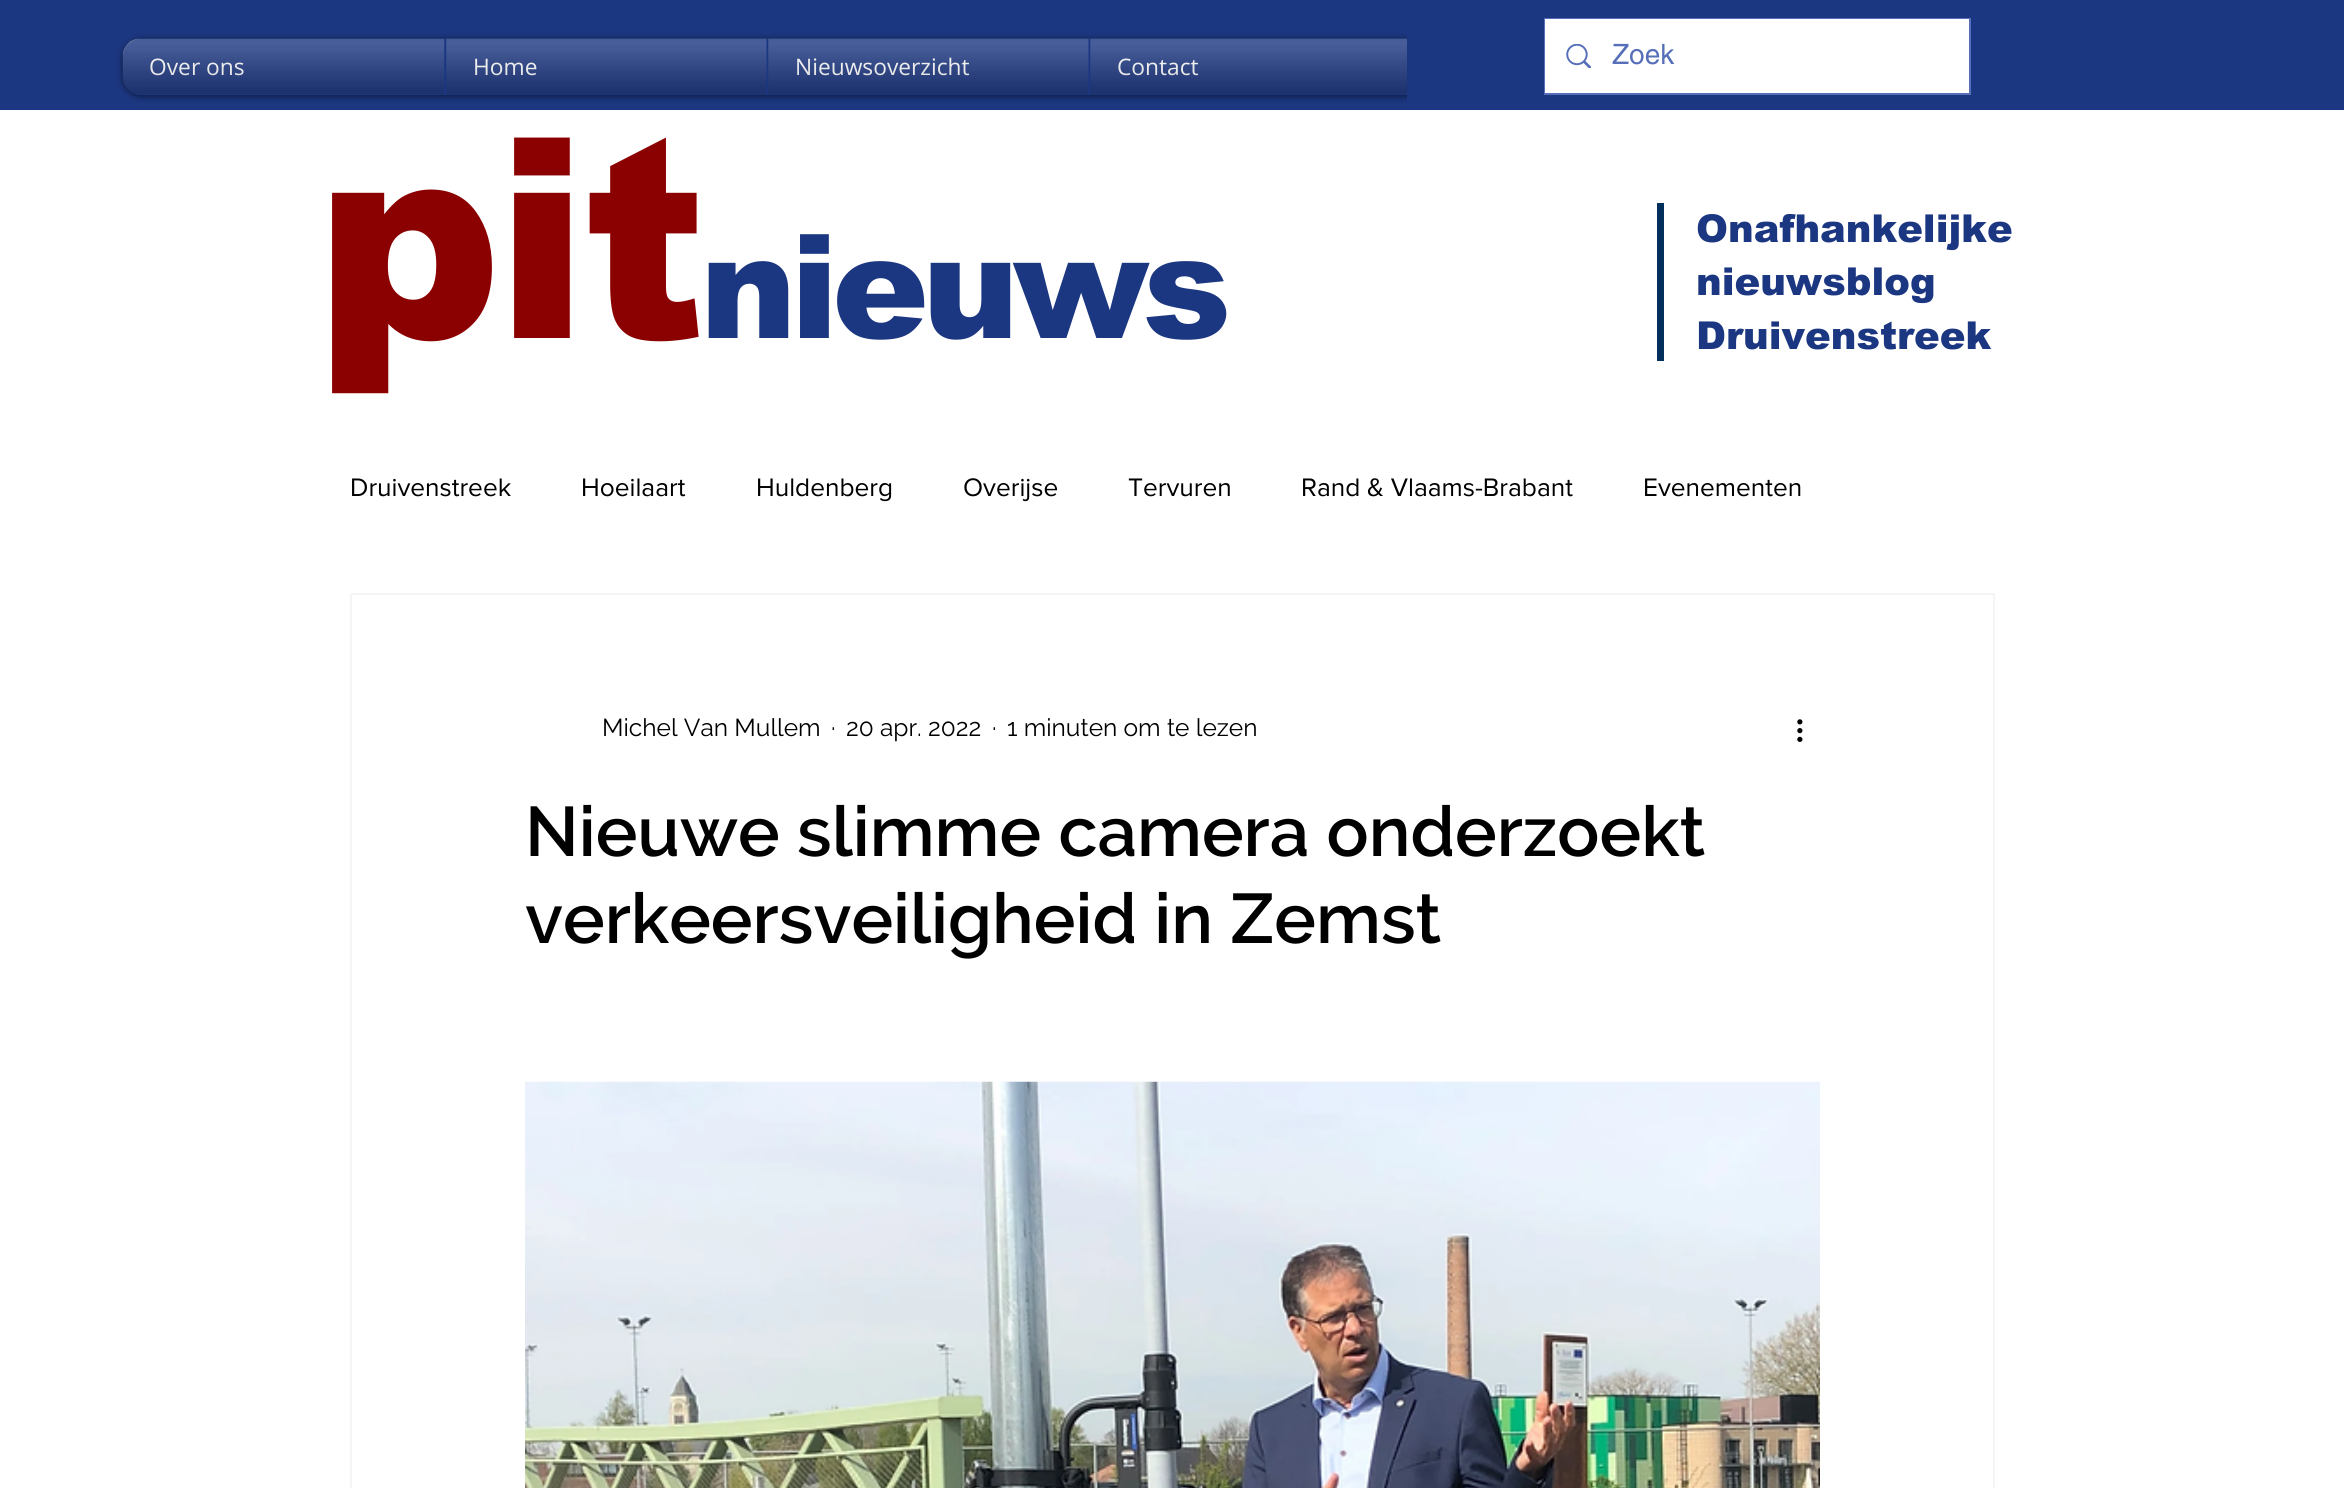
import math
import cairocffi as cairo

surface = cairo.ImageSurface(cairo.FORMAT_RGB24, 2344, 1488)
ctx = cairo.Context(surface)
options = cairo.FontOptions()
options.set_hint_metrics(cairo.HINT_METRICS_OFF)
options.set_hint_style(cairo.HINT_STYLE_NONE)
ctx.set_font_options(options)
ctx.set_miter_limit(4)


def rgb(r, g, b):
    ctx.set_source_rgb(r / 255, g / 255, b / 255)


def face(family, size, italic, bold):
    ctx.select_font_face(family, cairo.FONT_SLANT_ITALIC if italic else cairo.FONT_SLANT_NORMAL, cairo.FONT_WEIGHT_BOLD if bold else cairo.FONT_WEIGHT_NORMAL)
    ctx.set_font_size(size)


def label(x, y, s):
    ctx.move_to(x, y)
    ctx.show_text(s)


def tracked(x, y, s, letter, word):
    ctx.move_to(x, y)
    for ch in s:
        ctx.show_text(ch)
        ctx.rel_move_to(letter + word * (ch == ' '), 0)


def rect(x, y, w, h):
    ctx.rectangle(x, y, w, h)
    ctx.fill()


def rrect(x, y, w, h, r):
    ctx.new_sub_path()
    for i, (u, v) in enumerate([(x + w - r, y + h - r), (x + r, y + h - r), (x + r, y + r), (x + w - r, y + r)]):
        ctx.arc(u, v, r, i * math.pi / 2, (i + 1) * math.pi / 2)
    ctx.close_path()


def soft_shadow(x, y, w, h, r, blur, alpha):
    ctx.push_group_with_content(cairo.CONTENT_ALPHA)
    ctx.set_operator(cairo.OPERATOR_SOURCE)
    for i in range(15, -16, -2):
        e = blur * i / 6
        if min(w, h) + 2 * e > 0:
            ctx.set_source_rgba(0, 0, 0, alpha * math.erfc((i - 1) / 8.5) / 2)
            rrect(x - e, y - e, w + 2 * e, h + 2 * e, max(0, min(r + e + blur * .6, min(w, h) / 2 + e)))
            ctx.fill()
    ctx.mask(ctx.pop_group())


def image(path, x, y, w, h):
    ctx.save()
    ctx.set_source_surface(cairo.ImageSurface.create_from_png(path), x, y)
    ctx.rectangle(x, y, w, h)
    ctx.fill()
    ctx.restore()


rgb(255, 255, 255)
ctx.paint()
rgb(28, 55, 129)
rect(0, 0, 1407, 110)
rgb(0, 0, 0)
soft_shadow(123, 40, 1610, 56, 18, 3.5, 0.6)
image('image0.png', 122, 38, 1285, 53)
image('image1.png', 123, 52, 12, 42)
rgb(28, 55, 129)
ctx.new_path()
ctx.move_to(141, 39)
ctx.line_to(445, 39)
ctx.line_to(445, 95)
ctx.line_to(141, 95)
ctx.curve_to(131, 95, 123, 87, 123, 77)
ctx.line_to(123, 57)
ctx.curve_to(123, 47, 131, 39, 141, 39)
ctx.close_path()
ctx.fill()
face('Open Sans', 22.75, 0, 0)
rgb(255, 255, 255)
label(149, 75, 'Over ons')
image('image2.png', 123, 38, 322, 56)
image('image3.png', 123, 51, 322, 43)
rgb(28, 55, 129)
rect(445, 39, 962, 56)
rgb(255, 255, 255)
label(473, 75, 'Home')
image('image4.png', 446, 38, 321, 56)
image('image5.png', 446, 51, 321, 44)
label(795, 75, 'Nieuwsoverzicht')
image('image6.png', 768, 38, 321, 56)
image('image7.png', 768, 51, 321, 44)
label(1117, 75, 'Contact')
image('image8.png', 1090, 38, 317, 56)
image('image9.png', 1090, 51, 317, 44)
rgb(28, 55, 129)
rect(1407, 0, 937, 110)
ctx.rectangle(1545, 19, 425, 75)
rgb(86, 111, 184)
ctx.stroke()
rgb(255, 255, 255)
rect(1545, 19, 424, 74)
image('image10.png', 1566, 44, 25, 24)
face('helvetica', 28, 0, 0)
rgb(86, 111, 184)
label(1612, 64, 'Zoek')
face('arial Black', 280, 0, 0)
rgb(139, 0, 0)
tracked(315, 338, 'pit', -6.5, 0)
face('arial Black', 145, 0, 0)
rgb(28, 55, 129)
tracked(700, 338, 'nieuws', -6.5, 0)
rgb(0, 46, 93)
rect(1657, 203, 7, 158)
face('arial Black', 38.5, 0, 0)
rgb(28, 55, 129)
label(1696, 242, 'Onafhankelijke')
label(1696, 295, 'nieuwsblog')
label(1696, 349, 'Druivenstreek')
face('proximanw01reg', 26.25, 0, 0)
rgb(0, 0, 0)
label(350, 496, 'Druivenstreek')
label(581, 496, 'Hoeilaart')
label(756, 496, 'Huldenberg')
label(963, 496, 'Overijse')
label(1128, 496, 'Tervuren')
label(1301, 496, 'Rand & Vlaams-Brabant')
label(1643, 496, 'Evenementen')
ctx.rectangle(351, 594, 1643, 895)
rgb(245, 245, 245)
ctx.stroke()
face('Raleway', 24.5, 0, 0)
rgb(0, 0, 0)
label(602, 736, 'Michel Van Mullem')
label(831, 736, '·')
label(846, 736, '20 apr. 2022')
label(992, 736, '·')
label(1007, 736, '1 minuten om te lezen')
image('image11.png', 1797, 719, 6, 23)
face('Raleway SemiBold', 70, 0, 0)
label(525, 856, 'Nieuwe slimme camera onderzoekt')
label(525, 943, 'verkeersveiligheid in Zemst')
image('image12.png', 525, 1081, 1295, 407)
surface.write_to_png('render.png')
